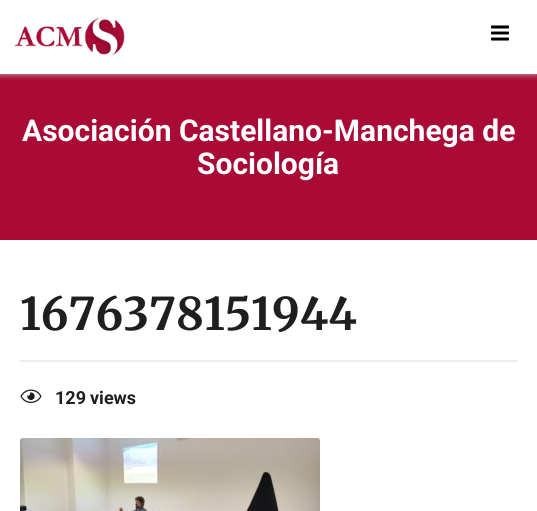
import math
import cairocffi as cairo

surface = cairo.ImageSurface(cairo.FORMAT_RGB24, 537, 511)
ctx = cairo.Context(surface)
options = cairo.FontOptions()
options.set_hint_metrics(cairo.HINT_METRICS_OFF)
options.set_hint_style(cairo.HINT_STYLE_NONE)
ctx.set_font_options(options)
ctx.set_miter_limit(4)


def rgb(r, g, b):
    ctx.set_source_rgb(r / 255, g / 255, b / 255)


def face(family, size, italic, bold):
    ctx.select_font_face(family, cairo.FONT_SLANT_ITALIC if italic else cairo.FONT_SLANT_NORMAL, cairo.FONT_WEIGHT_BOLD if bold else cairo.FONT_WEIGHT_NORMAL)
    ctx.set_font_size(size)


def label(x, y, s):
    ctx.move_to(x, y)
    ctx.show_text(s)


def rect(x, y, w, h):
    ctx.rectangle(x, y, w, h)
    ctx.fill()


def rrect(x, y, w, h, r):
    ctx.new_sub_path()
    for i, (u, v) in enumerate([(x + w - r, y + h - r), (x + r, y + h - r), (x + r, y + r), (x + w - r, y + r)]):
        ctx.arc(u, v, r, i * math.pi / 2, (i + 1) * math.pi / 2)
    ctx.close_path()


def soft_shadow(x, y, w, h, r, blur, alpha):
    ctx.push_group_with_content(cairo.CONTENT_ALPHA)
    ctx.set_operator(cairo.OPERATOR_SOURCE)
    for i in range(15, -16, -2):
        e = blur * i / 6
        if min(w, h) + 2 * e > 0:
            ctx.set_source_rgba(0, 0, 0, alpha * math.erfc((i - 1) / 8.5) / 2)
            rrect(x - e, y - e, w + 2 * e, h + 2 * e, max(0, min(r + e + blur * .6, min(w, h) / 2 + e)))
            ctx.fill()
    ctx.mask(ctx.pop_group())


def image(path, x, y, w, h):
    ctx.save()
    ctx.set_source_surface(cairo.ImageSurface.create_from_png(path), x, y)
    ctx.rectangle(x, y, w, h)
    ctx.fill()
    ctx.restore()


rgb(255, 255, 255)
ctx.paint()
rgb(169, 11, 54)
rect(0, 74, 537, 166)
ctx.save()
ctx.rectangle(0, 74, 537, 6)
ctx.clip()
rgb(199, 199, 199)
soft_shadow(0, 0, 537, 74, 0, 3, 1)
ctx.restore()
image('image0.png', 15, 17, 110, 39)
image('image1.png', 491, 25, 18, 16)
face('Roboto', 30, 0, 1)
rgb(255, 255, 255)
label(22, 141, 'Asociación Castellano-Manchega de')
label(197, 174, 'Sociología')
face('Merriweather Light', 45, 0, 0)
rgb(31, 31, 31)
label(20, 330, '1676378151944')
rgb(236, 236, 236)
rect(20, 360, 497, 2)
image('image2.png', 20, 389, 22, 15)
face('Roboto', 18, 0, 1)
rgb(31, 31, 31)
label(55, 404, '129')
label(90, 404, 'views')
image('image3.png', 20, 438, 300, 73)
surface.write_to_png('render.png')
